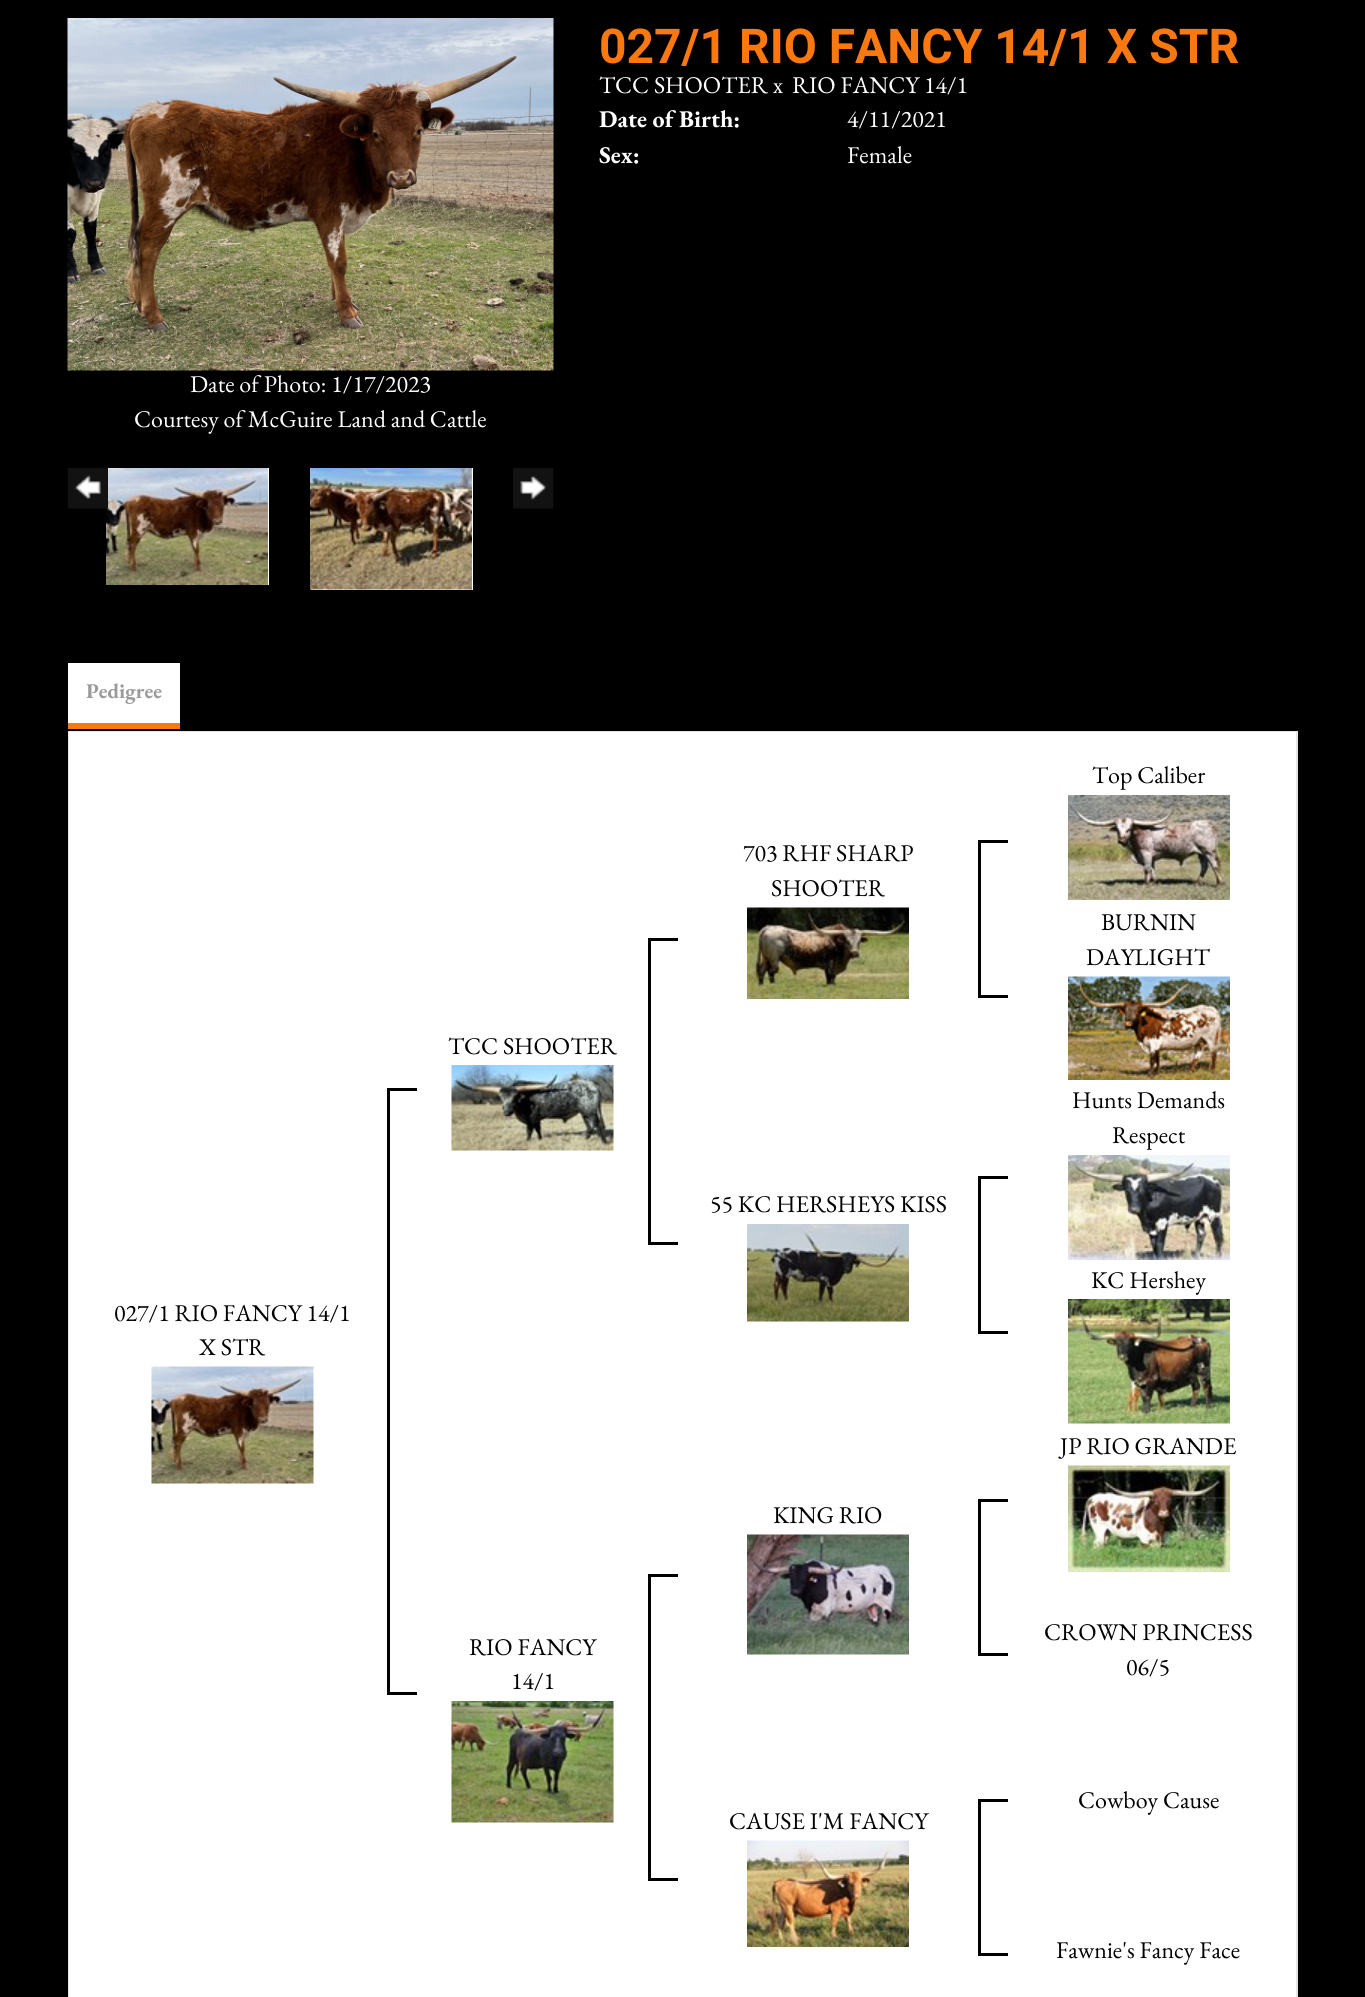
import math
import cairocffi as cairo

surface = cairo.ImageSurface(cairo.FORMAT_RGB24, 1365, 1997)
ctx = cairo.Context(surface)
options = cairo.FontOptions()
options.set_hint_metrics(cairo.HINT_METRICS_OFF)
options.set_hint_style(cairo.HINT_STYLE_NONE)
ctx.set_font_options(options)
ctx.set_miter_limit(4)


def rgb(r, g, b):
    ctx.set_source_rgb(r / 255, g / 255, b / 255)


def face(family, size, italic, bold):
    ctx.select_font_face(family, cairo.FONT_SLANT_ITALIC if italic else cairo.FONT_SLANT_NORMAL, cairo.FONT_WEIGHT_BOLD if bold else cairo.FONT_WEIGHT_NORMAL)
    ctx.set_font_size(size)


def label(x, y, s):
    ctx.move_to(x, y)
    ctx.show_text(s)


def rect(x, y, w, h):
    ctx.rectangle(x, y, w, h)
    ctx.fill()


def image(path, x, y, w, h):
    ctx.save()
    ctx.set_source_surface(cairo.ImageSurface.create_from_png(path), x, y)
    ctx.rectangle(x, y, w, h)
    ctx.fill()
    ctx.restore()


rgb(0, 0, 0)
ctx.paint()
face('Roboto', 48, 0, 1)
rgb(250, 120, 16)
label(599, 63, '027/1 RIO FANCY 14/1 X STR')
face('EB Garamond', 24, 0, 0)
rgb(255, 255, 255)
label(599, 93, 'TCC SHOOTER x')
label(792, 93, 'RIO FANCY 14/1')
face('EB Garamond', 24, 0, 1)
label(599, 127, 'Date of Birth:')
face('EB Garamond', 24, 0, 0)
label(847, 127, '4/11/2021')
face('EB Garamond', 24, 0, 1)
label(599, 163, 'Sex:')
face('EB Garamond', 24, 0, 0)
label(847, 163, 'Female')
image('image0.png', 67, 18, 487, 353)
label(190, 392, 'Date of Photo: 1/17/2023')
label(134, 427, 'Courtesy of McGuire Land and Cattle')
image('image2.png', 106, 468, 162, 117)
image('image1.png', 67, 468, 41, 41)
rect(268, 468, 1, 117)
rect(311, 468, 162, 122)
image('image3.png', 310, 468, 162, 122)
image('image4.png', 513, 468, 41, 41)
rgb(229, 229, 229)
rect(68, 731, 1230, 1)
rgb(250, 120, 16)
rect(68, 723, 112, 6)
rgb(255, 255, 255)
rect(68, 663, 112, 60)
face('EB Garamond', 21, 0, 1)
rgb(155, 153, 153)
label(86, 698, 'Pedigree')
rgb(255, 255, 255)
rect(69, 732, 1227, 1265)
rgb(229, 229, 229)
ctx.new_path()
ctx.move_to(1298, 732)
ctx.line_to(1298, 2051)
ctx.line_to(1297, 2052)
ctx.line_to(1296, 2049)
ctx.line_to(1296, 732)
ctx.close_path()
ctx.fill()
ctx.new_path()
ctx.move_to(68, 732)
ctx.line_to(68, 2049)
ctx.line_to(68, 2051)
ctx.line_to(69, 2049)
ctx.line_to(69, 732)
ctx.close_path()
ctx.fill()
face('EB Garamond', 24, 0, 0)
rgb(0, 0, 0)
label(1092, 783, 'Top Caliber')
image('image5.png', 1068, 795, 162, 105)
label(743, 861, '703 RHF SHARP')
label(771, 896, 'SHOOTER')
image('image6.png', 747, 907, 162, 92)
rect(978, 840, 30, 3)
rect(978, 995, 30, 3)
rect(978, 840, 3, 158)
label(448, 1054, 'TCC SHOOTER')
image('image7.png', 451, 1065, 163, 86)
rect(648, 938, 30, 3)
rect(648, 1242, 30, 3)
rect(648, 938, 3, 307)
label(114, 1321, '027/1 RIO FANCY 14/1')
label(199, 1355, 'X STR')
image('image8.png', 151, 1366, 163, 118)
rect(387, 1088, 30, 3)
rect(387, 1692, 30, 3)
rect(387, 1088, 3, 607)
label(1101, 930, 'BURNIN')
label(1086, 965, 'DAYLIGHT')
image('image9.png', 1068, 976, 162, 104)
label(1072, 1108, 'Hunts Demands')
label(1112, 1143, 'Respect')
image('image10.png', 1068, 1155, 162, 105)
label(710, 1212, '55 KC HERSHEYS KISS')
image('image11.png', 747, 1224, 162, 98)
rect(978, 1176, 30, 3)
rect(978, 1331, 30, 3)
rect(978, 1176, 3, 158)
label(1091, 1288, 'KC Hershey')
image('image12.png', 1068, 1299, 162, 125)
label(1060, 1454, 'JP RIO GRANDE')
image('image13.png', 1068, 1465, 162, 107)
label(773, 1523, 'KING RIO')
image('image14.png', 747, 1534, 162, 121)
rect(978, 1499, 30, 3)
rect(978, 1653, 30, 3)
rect(978, 1499, 3, 157)
label(469, 1655, 'RIO FANCY')
label(511, 1689, '14/1')
image('image15.png', 451, 1701, 163, 122)
rect(648, 1574, 30, 3)
rect(648, 1878, 30, 3)
rect(648, 1574, 3, 307)
label(1044, 1640, 'CROWN PRINCESS')
label(1126, 1675, '06/5')
label(729, 1829, 'CAUSE I\'M FANCY')
image('image16.png', 747, 1840, 162, 107)
rect(978, 1799, 30, 3)
rect(978, 1953, 30, 3)
rect(978, 1799, 3, 157)
label(1078, 1808, 'Cowboy Cause')
label(1056, 1958, 'Fawnie\'s Fancy Face')
surface.write_to_png('render.png')
